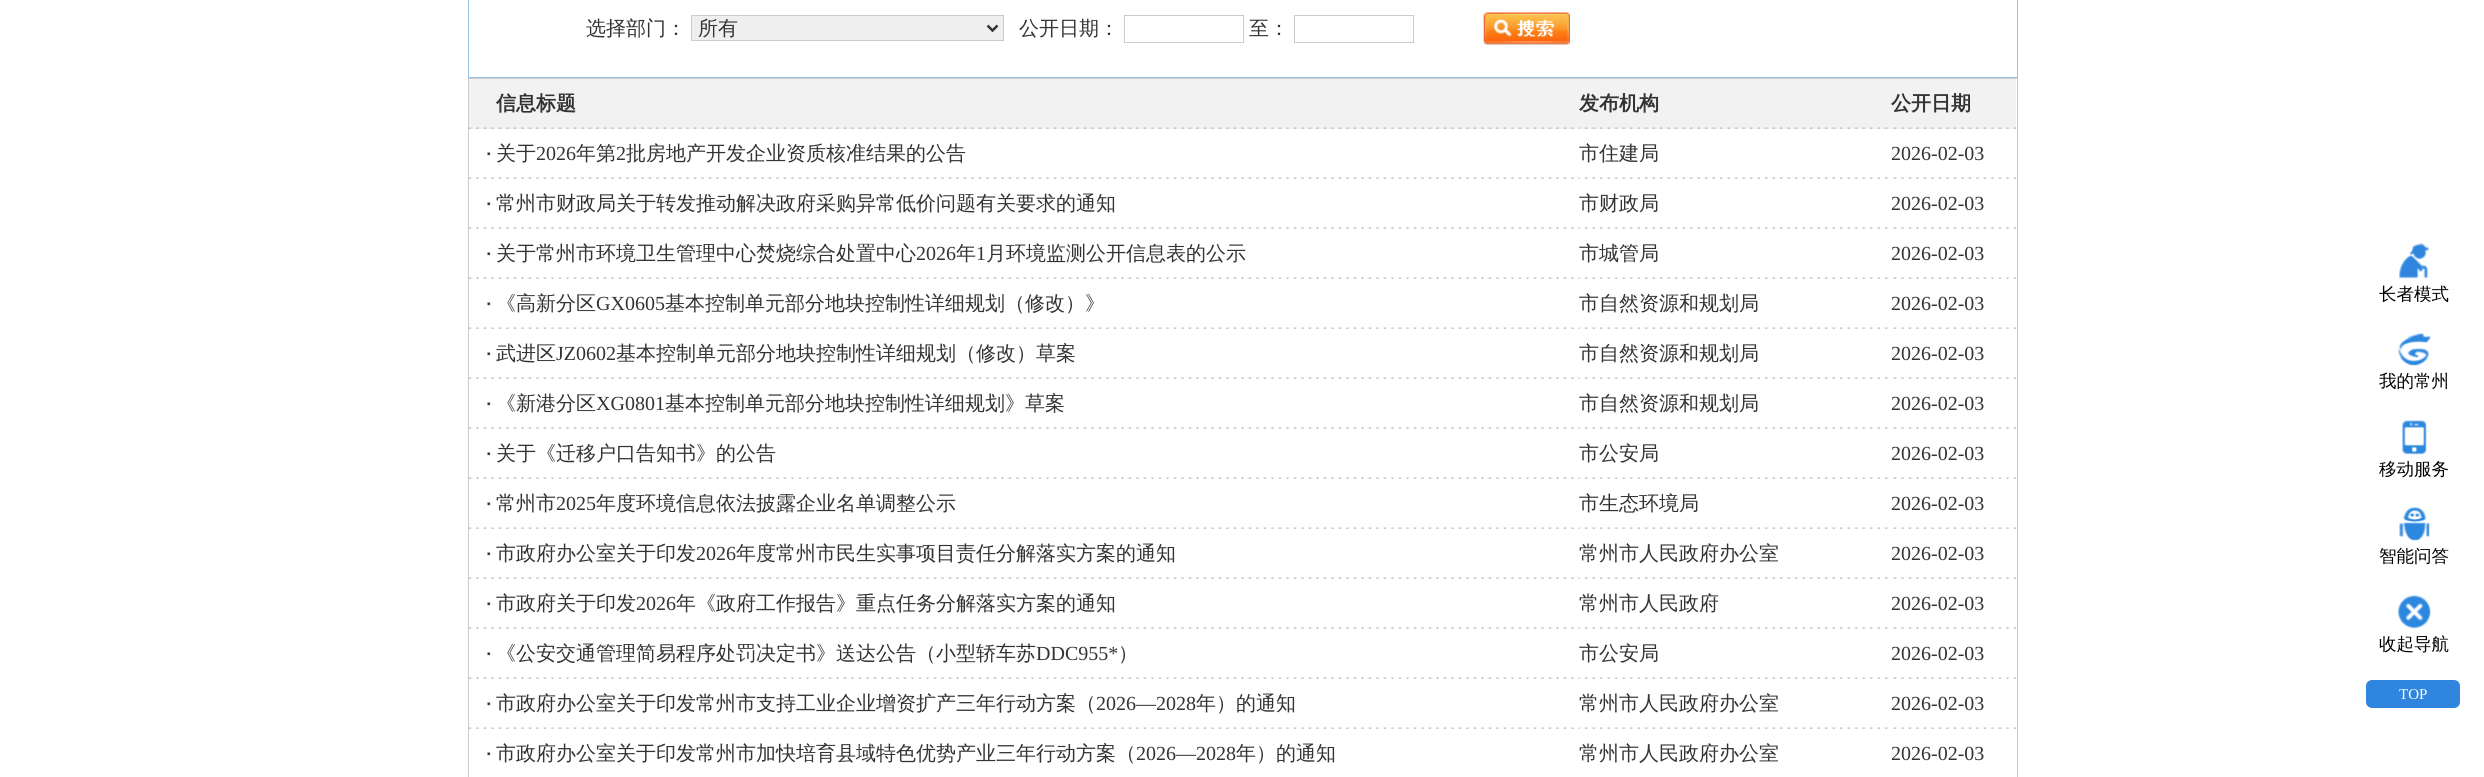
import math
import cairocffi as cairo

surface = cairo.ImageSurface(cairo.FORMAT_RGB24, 2484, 777)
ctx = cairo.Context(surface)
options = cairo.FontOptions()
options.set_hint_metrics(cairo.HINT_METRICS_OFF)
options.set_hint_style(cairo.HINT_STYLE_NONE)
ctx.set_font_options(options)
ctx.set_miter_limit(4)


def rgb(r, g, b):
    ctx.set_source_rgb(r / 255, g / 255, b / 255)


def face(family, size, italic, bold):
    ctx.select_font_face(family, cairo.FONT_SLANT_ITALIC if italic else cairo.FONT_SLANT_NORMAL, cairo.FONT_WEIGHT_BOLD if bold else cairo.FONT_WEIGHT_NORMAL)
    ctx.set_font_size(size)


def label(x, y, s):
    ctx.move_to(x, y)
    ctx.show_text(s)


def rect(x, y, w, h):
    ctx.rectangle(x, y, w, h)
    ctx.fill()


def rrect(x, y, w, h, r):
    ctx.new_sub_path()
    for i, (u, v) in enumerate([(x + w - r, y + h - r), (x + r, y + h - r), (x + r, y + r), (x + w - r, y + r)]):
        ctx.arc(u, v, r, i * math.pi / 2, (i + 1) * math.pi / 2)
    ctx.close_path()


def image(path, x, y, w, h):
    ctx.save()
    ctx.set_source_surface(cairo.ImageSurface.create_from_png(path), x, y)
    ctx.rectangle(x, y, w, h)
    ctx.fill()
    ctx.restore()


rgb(255, 255, 255)
ctx.paint()
ctx.rectangle(468.5, -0.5, 1549, 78)
rgb(151, 193, 234)
ctx.set_line_width(1)
ctx.stroke()
face('WenQuanYi Zen Hei Medium', 20, 0, 0)
rgb(51, 51, 51)
label(586, 35, '选择部门：')
rgb(239, 239, 239)
ctx.rectangle(691.5, 15.5, 312, 25)
ctx.fill_preserve()
rgb(204, 204, 204)
ctx.stroke()
ctx.new_path()
ctx.move_to(987.5, 25.5)
ctx.line_to(992.5, 30.5)
ctx.line_to(997.5, 25.5)
rgb(51, 51, 51)
ctx.set_line_width(2.5)
ctx.stroke()
label(698, 35, '所有')
label(1019, 35, '公开日期：')
ctx.rectangle(1124.5, 15.5, 119, 27)
rgb(204, 204, 204)
ctx.set_line_width(1)
ctx.stroke()
rgb(51, 51, 51)
label(1249, 35, '至：')
ctx.rectangle(1294.5, 15.5, 119, 27)
rgb(204, 204, 204)
ctx.stroke()
image('image0.png', 1483, 12, 87, 33)
ctx.rectangle(468.5, 78.5, 1549, 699)
ctx.stroke()
rgb(242, 242, 242)
rect(469, 79, 1547, 50)
image('image1.png', 469, 127, 1110, 2)
face('WenQuanYi Zen Hei', 20, 0, 1)
rgb(51, 51, 51)
label(496, 110, '信息标题')
image('image2.png', 1578, 127, 310, 2)
label(1579, 110, '发布机构')
image('image3.png', 1893, 127, 124, 2)
label(1891, 110, '公开日期')
image('image4.png', 469, 177, 1110, 2)
image('image5.png', 487, 152, 4, 4)
face('WenQuanYi Zen Hei Medium', 20, 0, 0)
label(496, 160, '关于')
face('Liberation Serif', 20, 0, 0)
label(536, 160, '2026')
face('WenQuanYi Zen Hei Medium', 20, 0, 0)
label(576, 160, '年第')
face('Liberation Serif', 20, 0, 0)
label(616, 160, '2')
face('WenQuanYi Zen Hei Medium', 20, 0, 0)
label(626, 160, '批房地产开发企业资质核准结果的公告')
image('image6.png', 1578, 177, 310, 2)
label(1579, 160, '市住建局')
image('image7.png', 1893, 177, 124, 2)
face('Liberation Serif', 20, 0, 0)
label(1891, 160, '2026-02-03')
image('image4.png', 469, 227, 1110, 2)
image('image5.png', 487, 202, 4, 4)
face('WenQuanYi Zen Hei Medium', 20, 0, 0)
label(496, 210, '常州市财政局关于转发推动解决政府采购异常低价问题有关要求的通知')
image('image6.png', 1578, 227, 310, 2)
label(1579, 210, '市财政局')
image('image7.png', 1893, 227, 124, 2)
face('Liberation Serif', 20, 0, 0)
label(1891, 210, '2026-02-03')
image('image4.png', 469, 277, 1110, 2)
image('image5.png', 487, 252, 4, 4)
face('WenQuanYi Zen Hei Medium', 20, 0, 0)
label(496, 260, '关于常州市环境卫生管理中心焚烧综合处置中心')
face('Liberation Serif', 20, 0, 0)
label(916, 260, '2026')
face('WenQuanYi Zen Hei Medium', 20, 0, 0)
label(956, 260, '年')
face('Liberation Serif', 20, 0, 0)
label(976, 260, '1')
face('WenQuanYi Zen Hei Medium', 20, 0, 0)
label(986, 260, '月环境监测公开信息表的公示')
image('image6.png', 1578, 277, 310, 2)
label(1579, 260, '市城管局')
image('image7.png', 1893, 277, 124, 2)
face('Liberation Serif', 20, 0, 0)
label(1891, 260, '2026-02-03')
image('image4.png', 469, 327, 1110, 2)
image('image5.png', 487, 302, 4, 4)
face('WenQuanYi Zen Hei Medium', 20, 0, 0)
label(496, 310, '《高新分区')
face('Liberation Serif', 20, 0, 0)
label(596, 310, 'GX0605')
face('WenQuanYi Zen Hei Medium', 20, 0, 0)
label(665, 310, '基本控制单元部分地块控制性详细规划（修改）》')
image('image6.png', 1578, 327, 310, 2)
label(1579, 310, '市自然资源和规划局')
image('image7.png', 1893, 327, 124, 2)
face('Liberation Serif', 20, 0, 0)
label(1891, 310, '2026-02-03')
image('image4.png', 469, 377, 1110, 2)
image('image5.png', 487, 352, 4, 4)
face('WenQuanYi Zen Hei Medium', 20, 0, 0)
label(496, 360, '武进区')
face('Liberation Serif', 20, 0, 0)
label(556, 360, 'JZ0602')
face('WenQuanYi Zen Hei Medium', 20, 0, 0)
label(616, 360, '基本控制单元部分地块控制性详细规划（修改）草案')
image('image6.png', 1578, 377, 310, 2)
label(1579, 360, '市自然资源和规划局')
image('image7.png', 1893, 377, 124, 2)
face('Liberation Serif', 20, 0, 0)
label(1891, 360, '2026-02-03')
image('image4.png', 469, 427, 1110, 2)
image('image5.png', 487, 402, 4, 4)
face('WenQuanYi Zen Hei Medium', 20, 0, 0)
label(496, 410, '《新港分区')
face('Liberation Serif', 20, 0, 0)
label(596, 410, 'XG0801')
face('WenQuanYi Zen Hei Medium', 20, 0, 0)
label(665, 410, '基本控制单元部分地块控制性详细规划》草案')
image('image6.png', 1578, 427, 310, 2)
label(1579, 410, '市自然资源和规划局')
image('image7.png', 1893, 427, 124, 2)
face('Liberation Serif', 20, 0, 0)
label(1891, 410, '2026-02-03')
image('image4.png', 469, 477, 1110, 2)
image('image5.png', 487, 452, 4, 4)
face('WenQuanYi Zen Hei Medium', 20, 0, 0)
label(496, 460, '关于《迁移户口告知书》的公告')
image('image6.png', 1578, 477, 310, 2)
label(1579, 460, '市公安局')
image('image7.png', 1893, 477, 124, 2)
face('Liberation Serif', 20, 0, 0)
label(1891, 460, '2026-02-03')
image('image4.png', 469, 527, 1110, 2)
image('image5.png', 487, 502, 4, 4)
face('WenQuanYi Zen Hei Medium', 20, 0, 0)
label(496, 510, '常州市')
face('Liberation Serif', 20, 0, 0)
label(556, 510, '2025')
face('WenQuanYi Zen Hei Medium', 20, 0, 0)
label(596, 510, '年度环境信息依法披露企业名单调整公示')
image('image6.png', 1578, 527, 310, 2)
label(1579, 510, '市生态环境局')
image('image7.png', 1893, 527, 124, 2)
face('Liberation Serif', 20, 0, 0)
label(1891, 510, '2026-02-03')
image('image4.png', 469, 577, 1110, 2)
image('image5.png', 487, 552, 4, 4)
face('WenQuanYi Zen Hei Medium', 20, 0, 0)
label(496, 560, '市政府办公室关于印发')
face('Liberation Serif', 20, 0, 0)
label(696, 560, '2026')
face('WenQuanYi Zen Hei Medium', 20, 0, 0)
label(736, 560, '年度常州市民生实事项目责任分解落实方案的通知')
image('image6.png', 1578, 577, 310, 2)
label(1579, 560, '常州市人民政府办公室')
image('image7.png', 1893, 577, 124, 2)
face('Liberation Serif', 20, 0, 0)
label(1891, 560, '2026-02-03')
image('image4.png', 469, 627, 1110, 2)
image('image5.png', 487, 602, 4, 4)
face('WenQuanYi Zen Hei Medium', 20, 0, 0)
label(496, 610, '市政府关于印发')
face('Liberation Serif', 20, 0, 0)
label(636, 610, '2026')
face('WenQuanYi Zen Hei Medium', 20, 0, 0)
label(676, 610, '年《政府工作报告》重点任务分解落实方案的通知')
image('image6.png', 1578, 627, 310, 2)
label(1579, 610, '常州市人民政府')
image('image7.png', 1893, 627, 124, 2)
face('Liberation Serif', 20, 0, 0)
label(1891, 610, '2026-02-03')
image('image4.png', 469, 677, 1110, 2)
image('image5.png', 487, 652, 4, 4)
face('WenQuanYi Zen Hei Medium', 20, 0, 0)
label(496, 660, '《公安交通管理简易程序处罚决定书》送达公告（小型轿车苏')
face('Liberation Serif', 20, 0, 0)
label(1036, 660, 'DDC955*')
face('WenQuanYi Zen Hei Medium', 20, 0, 0)
label(1118, 660, '）')
image('image6.png', 1578, 677, 310, 2)
label(1579, 660, '市公安局')
image('image7.png', 1893, 677, 124, 2)
face('Liberation Serif', 20, 0, 0)
label(1891, 660, '2026-02-03')
image('image4.png', 469, 727, 1110, 2)
image('image5.png', 487, 702, 4, 4)
face('WenQuanYi Zen Hei Medium', 20, 0, 0)
label(496, 710, '市政府办公室关于印发常州市支持工业企业增资扩产三年行动方案（')
face('Liberation Serif', 20, 0, 0)
label(1096, 710, '2026—2028')
face('WenQuanYi Zen Hei Medium', 20, 0, 0)
label(1196, 710, '年）的通知')
image('image6.png', 1578, 727, 310, 2)
label(1579, 710, '常州市人民政府办公室')
image('image7.png', 1893, 727, 124, 2)
face('Liberation Serif', 20, 0, 0)
label(1891, 710, '2026-02-03')
image('image5.png', 487, 752, 4, 4)
face('WenQuanYi Zen Hei Medium', 20, 0, 0)
label(496, 760, '市政府办公室关于印发常州市加快培育县域特色优势产业三年行动方案（')
face('Liberation Serif', 20, 0, 0)
label(1136, 760, '2026—2028')
face('WenQuanYi Zen Hei Medium', 20, 0, 0)
label(1236, 760, '年）的通知')
label(1579, 760, '常州市人民政府办公室')
face('Liberation Serif', 20, 0, 0)
label(1891, 760, '2026-02-03')
image('image8.png', 2399, 243, 31, 36)
face('WenQuanYi Zen Hei Medium', 17.5, 0, 0)
rgb(0, 0, 0)
label(2379, 300, '长者模式')
image('image9.png', 2398, 333, 33, 33)
label(2379, 387, '我的常州')
image('image10.png', 2402, 420, 25, 35)
label(2379, 475, '移动服务')
image('image11.png', 2399, 507, 31, 34)
label(2379, 562, '智能问答')
image('image12.png', 2398, 595, 33, 34)
label(2379, 650, '收起导航')
rgb(48, 134, 222)
rrect(2366, 680, 94, 28, 6)
ctx.fill()
face('Liberation Serif', 15, 0, 0)
rgb(255, 255, 255)
label(2399, 699, 'TOP')
surface.write_to_png('render.png')
